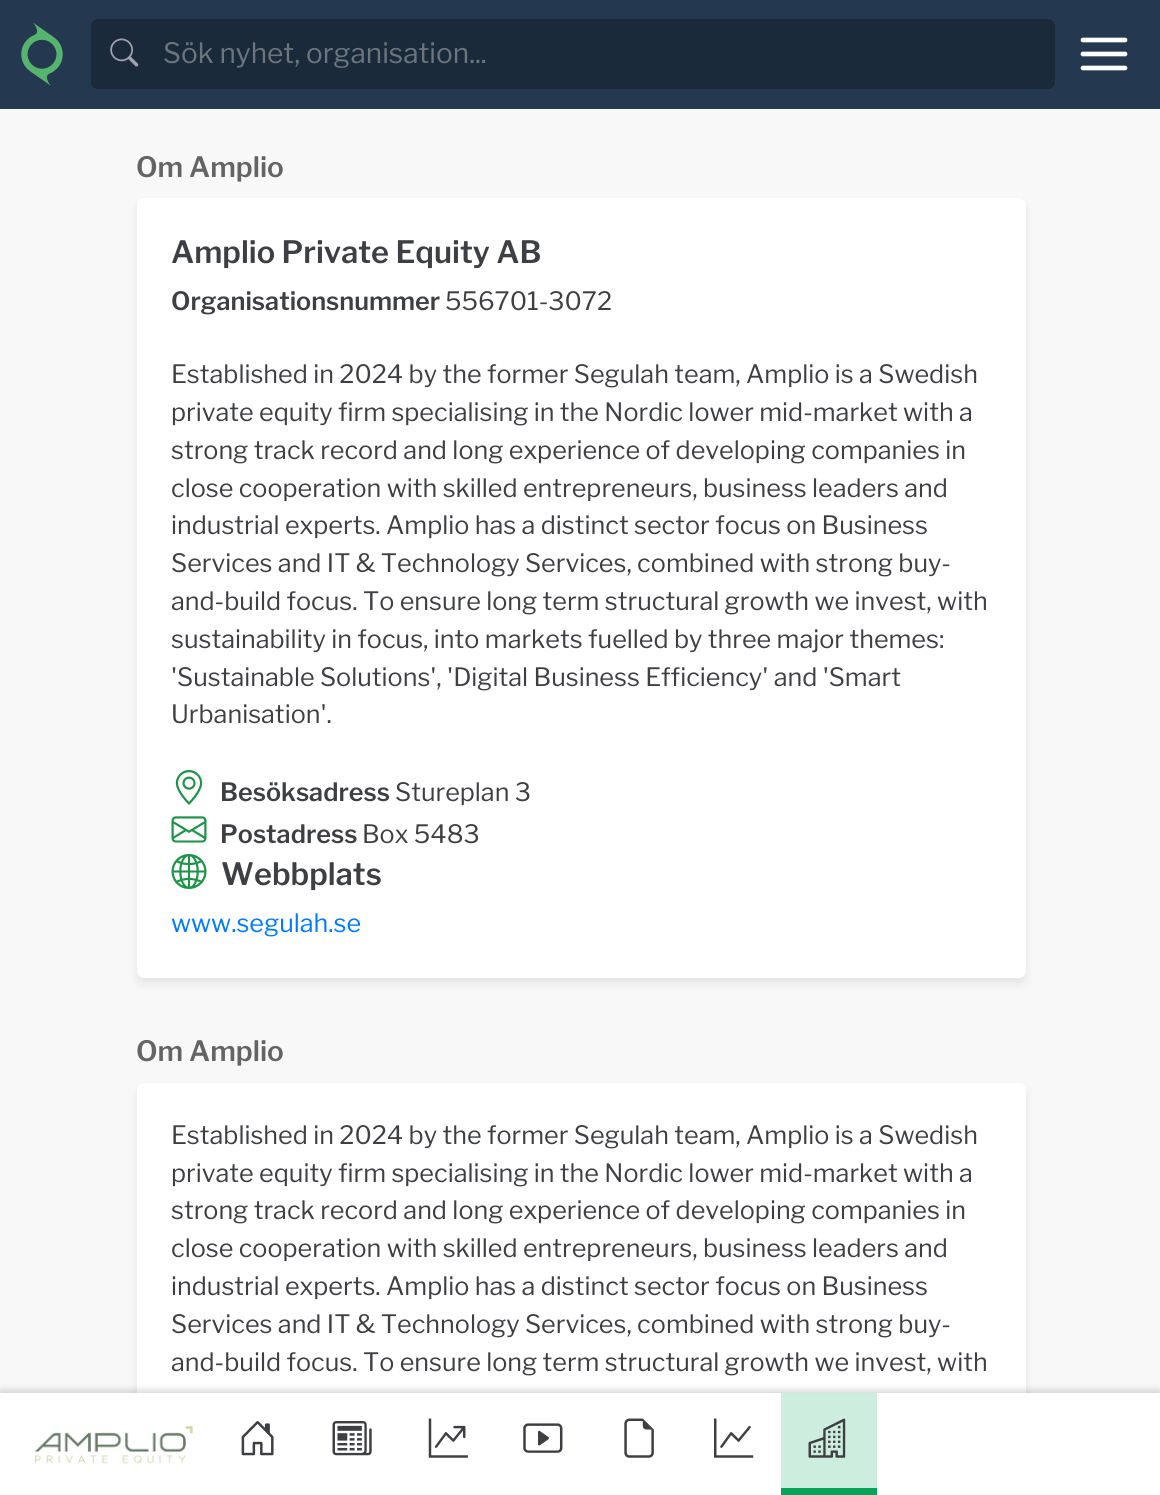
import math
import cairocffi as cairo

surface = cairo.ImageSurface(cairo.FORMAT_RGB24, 1160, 1495)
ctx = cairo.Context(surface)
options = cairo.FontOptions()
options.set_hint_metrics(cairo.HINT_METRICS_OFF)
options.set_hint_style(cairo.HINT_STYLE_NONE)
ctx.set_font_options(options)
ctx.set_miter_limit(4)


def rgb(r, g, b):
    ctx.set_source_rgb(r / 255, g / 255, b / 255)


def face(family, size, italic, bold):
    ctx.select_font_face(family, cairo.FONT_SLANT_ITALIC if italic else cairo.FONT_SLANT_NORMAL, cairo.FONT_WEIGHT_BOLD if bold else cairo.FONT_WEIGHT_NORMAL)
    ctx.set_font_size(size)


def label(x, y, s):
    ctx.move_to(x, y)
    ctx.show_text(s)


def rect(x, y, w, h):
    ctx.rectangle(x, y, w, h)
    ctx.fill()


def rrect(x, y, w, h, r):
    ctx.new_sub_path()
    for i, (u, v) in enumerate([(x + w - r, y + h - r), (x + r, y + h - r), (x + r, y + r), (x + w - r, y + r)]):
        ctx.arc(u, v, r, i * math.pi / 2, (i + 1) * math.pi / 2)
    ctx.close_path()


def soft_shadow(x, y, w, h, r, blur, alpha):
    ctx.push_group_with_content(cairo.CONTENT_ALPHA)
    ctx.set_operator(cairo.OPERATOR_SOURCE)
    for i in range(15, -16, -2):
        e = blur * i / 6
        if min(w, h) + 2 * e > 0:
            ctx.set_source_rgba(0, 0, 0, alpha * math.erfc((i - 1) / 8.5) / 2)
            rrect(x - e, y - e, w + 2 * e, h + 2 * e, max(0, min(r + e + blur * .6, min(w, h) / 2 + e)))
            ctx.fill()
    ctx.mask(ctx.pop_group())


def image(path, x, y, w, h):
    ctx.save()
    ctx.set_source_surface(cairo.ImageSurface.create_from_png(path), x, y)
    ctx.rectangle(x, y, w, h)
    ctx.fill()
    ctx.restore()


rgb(248, 248, 249)
ctx.paint()
rgb(36, 56, 79)
rect(0, 0, 1160, 109)
image('image0.png', 21, 23, 42, 63)
rgb(27, 42, 59)
rrect(91, 19, 964, 70, 7)
ctx.fill()
image('image1.png', 110, 38, 29, 29)
face('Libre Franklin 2 Thin', 28, 0, 0)
rgb(108, 117, 125)
label(163, 63, 'Sök nyhet, organisation...')
ctx.new_path()
ctx.move_to(1083, 54)
ctx.line_to(1125, 54)
ctx.move_to(1083, 40)
ctx.line_to(1125, 40)
ctx.move_to(1083, 68)
ctx.line_to(1125, 68)
rgb(255, 255, 255)
ctx.set_line_width(4.7)
ctx.set_line_cap(cairo.LINE_CAP_ROUND)
ctx.set_line_join(cairo.LINE_JOIN_ROUND)
ctx.stroke()
face('Libre Franklin Thin', 28, 0, 0)
rgb(100, 100, 100)
label(136, 177, 'Om Amplio')
rgb(0, 0, 0)
soft_shadow(137, 203, 889, 781, 7, 5, 0.08)
rgb(255, 255, 255)
rrect(137, 198, 889, 780, 7)
ctx.fill()
face('Libre Franklin Thin', 30.75, 0, 0)
rgb(62, 63, 66)
label(171, 263, 'Amplio Private Equity AB')
face('Libre Franklin Thin', 25.2, 0, 0)
label(171, 310, 'Organisationsnummer')
face('Libre Franklin 2 Thin', 25.2, 0, 0)
label(445, 310, '556701-3072')
label(171, 383, 'Established in 2024 by the former Segulah team, Amplio is a Swedish')
label(171, 421, 'private equity firm specialising in the Nordic lower mid-market with a')
label(171, 459, 'strong track record and long experience of developing companies in')
label(171, 497, 'close cooperation with skilled entrepreneurs, business leaders and')
label(171, 534, 'industrial experts. Amplio has a distinct sector focus on Business')
label(171, 572, 'Services and IT & Technology Services, combined with strong buy-')
label(171, 610, 'and-build focus. To ensure long term structural growth we invest, with')
label(171, 648, 'sustainability in focus, into markets fuelled by three major themes:')
label(171, 686, '\'Sustainable Solutions\', \'Digital Business Efficiency\' and \'Smart')
label(171, 723, 'Urbanisation\'.')
image('image2.png', 175, 770, 28, 35)
face('Libre Franklin Thin', 25.2, 0, 0)
label(220, 801, 'Besöksadress')
face('Libre Franklin 2 Thin', 25.2, 0, 0)
label(395, 801, 'Stureplan 3')
image('image3.png', 171, 816, 36, 27)
face('Libre Franklin Thin', 25.2, 0, 0)
label(220, 843, 'Postadress')
face('Libre Franklin 2 Thin', 25.2, 0, 0)
label(362, 843, 'Box 5483')
image('image4.png', 171, 854, 36, 35)
face('Libre Franklin Thin', 30.75, 0, 0)
label(221, 885, 'Webbplats')
face('Libre Franklin 2 Thin', 25.2, 0, 0)
rgb(0, 123, 255)
label(171, 932, 'www.segulah.se')
face('Libre Franklin Thin', 28, 0, 0)
rgb(100, 100, 100)
label(136, 1061, 'Om Amplio')
rgb(0, 0, 0)
soft_shadow(137, 1089, 889, 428, 7, 5, 0.08)
rgb(255, 255, 255)
rrect(137, 1083, 889, 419, 7)
ctx.fill()
face('Libre Franklin 2 Thin', 25.2, 0, 0)
rgb(62, 63, 66)
label(171, 1144, 'Established in 2024 by the former Segulah team, Amplio is a Swedish')
label(171, 1182, 'private equity firm specialising in the Nordic lower mid-market with a')
label(171, 1219, 'strong track record and long experience of developing companies in')
label(171, 1257, 'close cooperation with skilled entrepreneurs, business leaders and')
label(171, 1295, 'industrial experts. Amplio has a distinct sector focus on Business')
label(171, 1333, 'Services and IT & Technology Services, combined with strong buy-')
label(171, 1371, 'and-build focus. To ensure long term structural growth we invest, with')
rgb(0, 0, 0)
soft_shadow(0, 1390, 1160, 103, 0, 3.5, 0.16)
rgb(255, 255, 255)
rect(0, 1393, 1160, 102)
image('image5.png', 35, 1426, 158, 38)
image('image6.png', 241, 1421, 33, 35)
image('image7.png', 332, 1421, 40, 35)
image('image8.png', 428, 1418, 40, 40)
image('image9.png', 523, 1423, 40, 30)
image('image10.png', 624, 1418, 30, 40)
image('image11.png', 714, 1418, 40, 40)
rgb(205, 237, 222)
rect(781, 1393, 96, 95)
rgb(6, 163, 89)
rect(781, 1488, 96, 7)
image('image12.png', 808, 1418, 38, 40)
surface.write_to_png('render.png')
